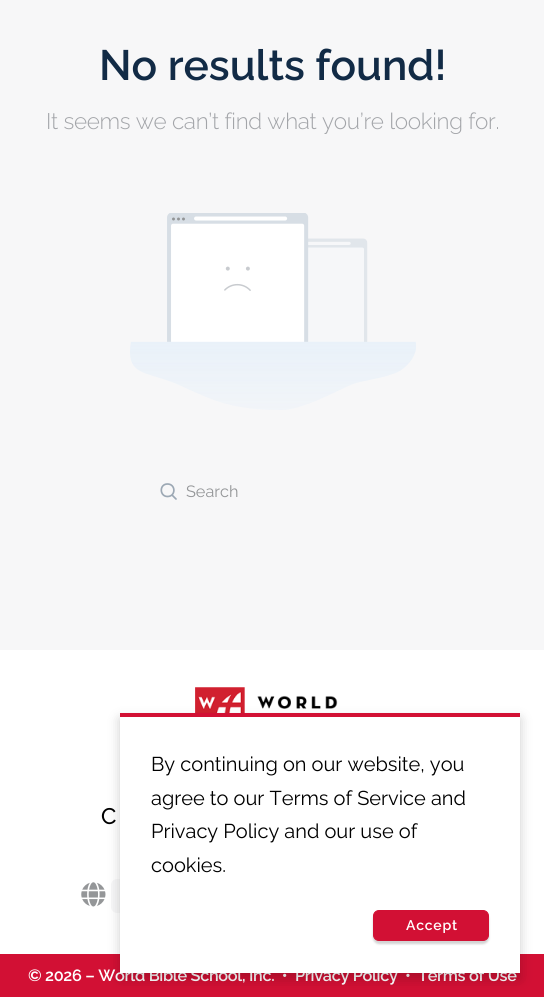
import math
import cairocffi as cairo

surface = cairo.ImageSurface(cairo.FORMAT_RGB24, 544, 997)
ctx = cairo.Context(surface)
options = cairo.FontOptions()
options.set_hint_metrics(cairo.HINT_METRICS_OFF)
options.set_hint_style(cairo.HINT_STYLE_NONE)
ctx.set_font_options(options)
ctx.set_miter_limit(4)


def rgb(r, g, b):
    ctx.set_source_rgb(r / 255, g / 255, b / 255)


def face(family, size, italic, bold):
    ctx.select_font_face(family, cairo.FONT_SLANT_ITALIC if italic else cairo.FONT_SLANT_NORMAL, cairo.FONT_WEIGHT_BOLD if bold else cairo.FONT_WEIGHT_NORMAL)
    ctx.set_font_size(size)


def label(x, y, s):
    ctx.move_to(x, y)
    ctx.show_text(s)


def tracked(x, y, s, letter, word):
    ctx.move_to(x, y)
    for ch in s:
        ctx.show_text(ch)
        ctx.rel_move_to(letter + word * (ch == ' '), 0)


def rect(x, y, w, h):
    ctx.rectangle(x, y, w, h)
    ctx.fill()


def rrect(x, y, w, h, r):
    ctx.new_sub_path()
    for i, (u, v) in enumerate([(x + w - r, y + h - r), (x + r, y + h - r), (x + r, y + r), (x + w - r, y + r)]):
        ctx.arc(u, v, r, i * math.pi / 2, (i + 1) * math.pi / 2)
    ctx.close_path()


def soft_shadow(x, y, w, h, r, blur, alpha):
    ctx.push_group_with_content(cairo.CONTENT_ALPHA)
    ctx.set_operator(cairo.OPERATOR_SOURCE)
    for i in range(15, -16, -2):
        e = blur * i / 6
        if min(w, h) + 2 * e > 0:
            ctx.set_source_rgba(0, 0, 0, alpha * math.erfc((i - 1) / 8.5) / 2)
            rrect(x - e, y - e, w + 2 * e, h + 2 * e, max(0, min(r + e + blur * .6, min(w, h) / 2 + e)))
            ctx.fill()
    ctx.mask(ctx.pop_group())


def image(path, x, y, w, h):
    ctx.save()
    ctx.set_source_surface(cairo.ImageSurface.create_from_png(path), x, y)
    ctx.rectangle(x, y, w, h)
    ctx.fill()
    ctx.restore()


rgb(255, 255, 255)
ctx.paint()
rgb(247, 247, 248)
rect(0, 0, 544, 650)
face('Raleway SemiBold', 42.5, 0, 0)
rgb(18, 43, 70)
label(99, 80, 'No results found!')
face('Raleway Light', 22.5, 0, 0)
rgb(163, 165, 169)
tracked(46, 129, 'It seems we can’t find what you’re looking for.', -0.3, 0)
image('image0.png', 130, 213, 286, 197)
ctx.new_path()
ctx.move_to(176, 499)
ctx.line_to(172, 495)
ctx.move_to(167.5, 484)
ctx.curve_to(176, 484, 176, 496.5, 167.5, 496.5)
ctx.curve_to(159.5, 496.5, 159, 484, 167.5, 484)
ctx.close_path()
rgb(156, 168, 180)
ctx.set_line_width(1.7)
ctx.set_line_cap(cairo.LINE_CAP_ROUND)
ctx.set_line_join(cairo.LINE_JOIN_ROUND)
ctx.stroke()
face('Raleway', 16.25, 0, 0)
rgb(148, 150, 152)
label(186, 497, 'Search')
image('image1.png', 195, 687, 143, 26)
face('Raleway Medium', 22.5, 0, 0)
rgb(0, 0, 0)
tracked(101, 824, 'C', -0.3, 0)
image('image2.png', 81, 882, 25, 25)
rgb(247, 247, 248)
rrect(111, 879, 188, 34, 6)
ctx.fill()
rgb(210, 16, 52)
rect(0, 954, 544, 43)
face('Raleway SemiBold', 16.25, 0, 0)
rgb(255, 255, 255)
tracked(28, 981, '© 2026 – World Bible School, Inc.  •', -0.3, 0)
tracked(295, 981, 'Privacy Policy', -0.3, 0)
tracked(405, 981, '•', -0.3, 0)
tracked(418, 981, 'Terms of Use', -0.3, 0)
rgb(0, 0, 0)
soft_shadow(120, 719, 400, 260, 0, 6, 0.2)
rgb(255, 255, 255)
rect(120, 717, 400, 256)
rgb(210, 16, 52)
rect(120, 713, 400, 4)
face('Raleway', 20, 0, 0)
rgb(0, 0, 0)
label(151, 771, 'By continuing on our website, you')
label(151, 805, 'agree to our Terms of Service and')
label(151, 838, 'Privacy Policy and our use of')
label(151, 872, 'cookies.')
rgb(34, 34, 34)
soft_shadow(373, 913, 116, 31, 6, 1, 0.2)
rgb(210, 16, 52)
rrect(373.5, 910.5, 115, 30, 5.5)
ctx.fill_preserve()
ctx.set_line_width(1)
ctx.set_line_cap(cairo.LINE_CAP_BUTT)
ctx.set_line_join(cairo.LINE_JOIN_MITER)
ctx.stroke()
face('Raleway SemiBold', 14, 0, 0)
rgb(255, 255, 255)
tracked(406, 930, 'Accept', 0.75, 0)
surface.write_to_png('render.png')
